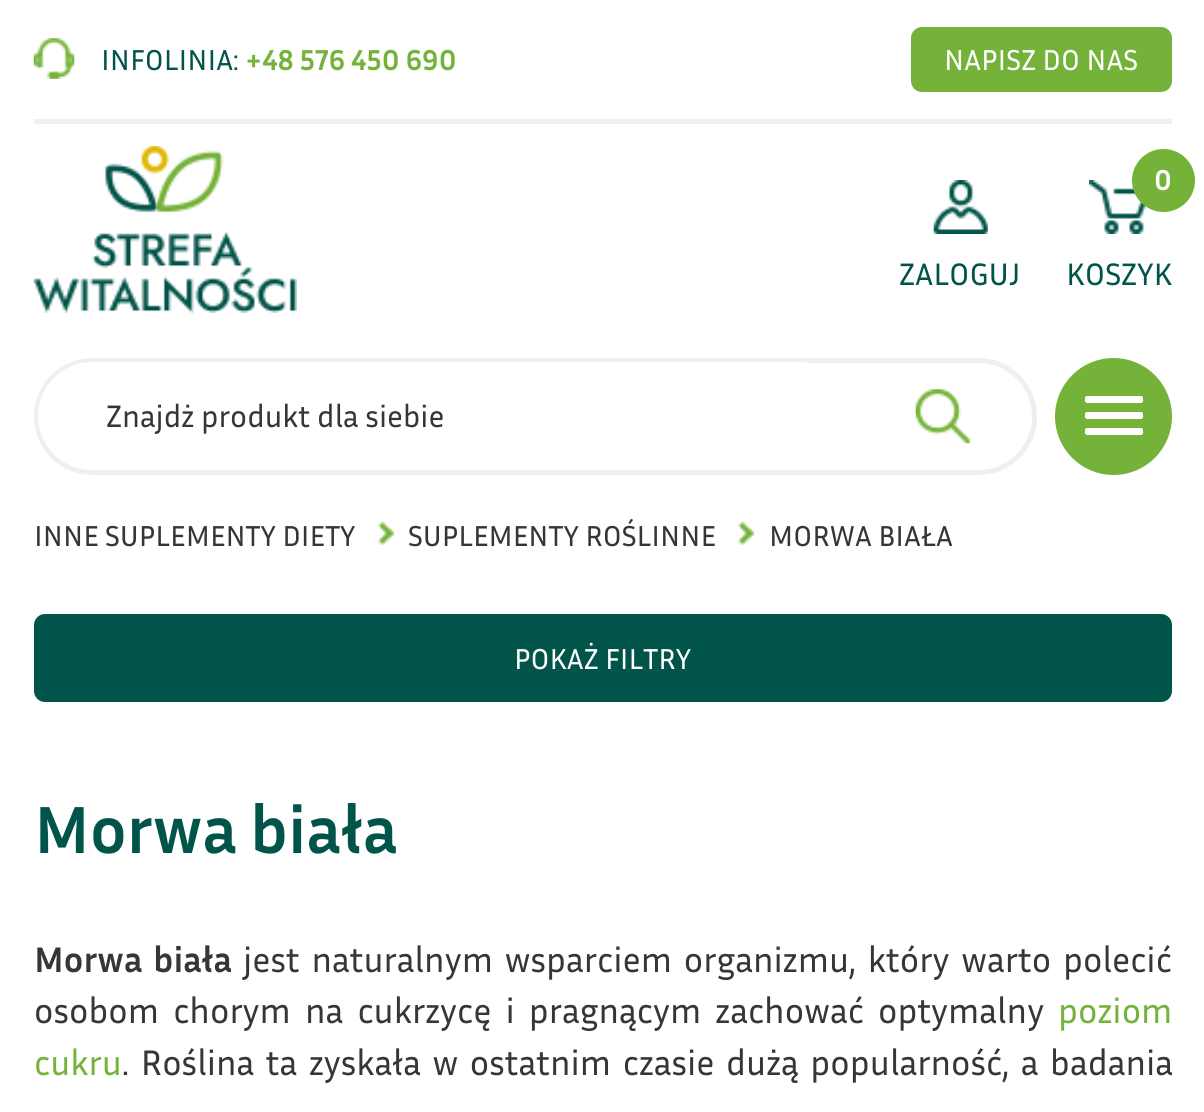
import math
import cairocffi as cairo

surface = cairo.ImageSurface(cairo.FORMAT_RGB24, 1204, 1112)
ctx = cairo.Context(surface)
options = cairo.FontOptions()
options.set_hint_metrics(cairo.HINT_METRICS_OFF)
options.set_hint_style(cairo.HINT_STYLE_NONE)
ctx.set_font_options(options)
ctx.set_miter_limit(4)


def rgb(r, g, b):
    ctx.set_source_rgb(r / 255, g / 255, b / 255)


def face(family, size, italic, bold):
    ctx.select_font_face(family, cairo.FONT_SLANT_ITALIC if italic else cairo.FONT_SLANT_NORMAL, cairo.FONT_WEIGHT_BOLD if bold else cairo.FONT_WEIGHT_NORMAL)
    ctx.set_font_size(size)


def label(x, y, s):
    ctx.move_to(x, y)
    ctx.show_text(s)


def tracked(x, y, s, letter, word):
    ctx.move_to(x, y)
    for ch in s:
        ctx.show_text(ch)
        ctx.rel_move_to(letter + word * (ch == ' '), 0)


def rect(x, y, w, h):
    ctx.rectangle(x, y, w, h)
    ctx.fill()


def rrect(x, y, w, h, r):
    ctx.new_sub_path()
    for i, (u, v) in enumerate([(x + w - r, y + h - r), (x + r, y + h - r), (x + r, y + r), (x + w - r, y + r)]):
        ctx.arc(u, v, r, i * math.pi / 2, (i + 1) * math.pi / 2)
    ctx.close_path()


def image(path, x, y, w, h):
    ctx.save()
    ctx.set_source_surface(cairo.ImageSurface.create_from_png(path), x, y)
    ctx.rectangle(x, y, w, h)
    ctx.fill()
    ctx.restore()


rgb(255, 255, 255)
ctx.paint()
rgb(239, 239, 239)
rect(34, 119, 1138, 5)
image('image0.png', 33, 38, 42, 41)
face('Inria Sans', 29.25, 0, 0)
rgb(1, 84, 74)
label(101, 70, 'INFOLINIA:')
face('Inria Sans', 29.25, 0, 1)
rgb(117, 178, 57)
label(245, 70, '+48 576 450 690')
rrect(911, 27, 261, 65, 11)
ctx.fill()
face('Inria Sans', 29.25, 0, 0)
rgb(255, 255, 255)
label(944, 70, 'NAPISZ DO NAS')
image('image1.png', 33, 146, 264, 167)
image('image2.png', 933, 180, 55, 54)
face('Inria Sans', 31.5, 0, 0)
rgb(1, 84, 74)
label(899, 285, 'ZALOGUJ')
image('image3.png', 1089, 180, 57, 54)
rgb(117, 178, 57)
ctx.arc(1163.5, 180.5, 31.5, 0, 2 * math.pi)
ctx.fill()
face('Inria Sans', 29.25, 0, 1)
rgb(255, 255, 255)
label(1154, 190, '0')
face('Inria Sans', 31.5, 0, 0)
rgb(1, 84, 74)
label(1066, 285, 'KOSZYK')
rrect(36.5, 360.5, 998, 112, 56)
rgb(239, 239, 239)
ctx.set_line_width(5)
ctx.stroke()
rgb(255, 255, 255)
rrect(38, 362, 815, 108, 54)
ctx.fill()
rgb(54, 54, 54)
label(106, 427, 'Znajdż produkt dla siebie')
image('image4.png', 915, 389, 55, 55)
rgb(117, 178, 57)
ctx.arc(1113.5, 416.5, 58.5, 0, 2 * math.pi)
ctx.fill()
rgb(255, 255, 255)
rrect(1085, 396, 58, 7, 2)
ctx.fill()
rrect(1085, 412, 58, 7, 2)
ctx.fill()
rrect(1085, 428, 58, 7, 2)
ctx.fill()
face('Inria Sans', 29.25, 0, 0)
rgb(54, 54, 54)
label(34, 546, 'INNE SUPLEMENTY DIETY')
image('image5.png', 378, 522, 16, 23)
label(408, 546, 'SUPLEMENTY ROŚLINNE')
image('image5.png', 738, 522, 16, 23)
label(769, 546, 'MORWA BIAŁA')
rgb(1, 84, 74)
rrect(34, 614, 1138, 88, 11)
ctx.fill()
rgb(255, 255, 255)
label(514, 669, 'POKAŻ FILTRY')
face('Inria Sans', 67.5, 0, 1)
rgb(1, 84, 74)
label(34, 853, 'Morwa biała')
face('Inria Sans', 36, 0, 1)
rgb(54, 54, 54)
tracked(34, 972, 'Morwa biała', 0, 4)
face('Inria Sans', 36, 0, 0)
tracked(243, 972, 'jest naturalnym wsparciem organizmu, który warto polecić', 0, 4)
tracked(34, 1023, 'osobom chorym na cukrzycę i pragnącym zachować optymalny', 0, 6.25)
rgb(117, 178, 57)
label(1058, 1023, 'poziom')
label(34, 1075, 'cukru')
rgb(54, 54, 54)
tracked(122, 1075, '. Roślina ta zyskała w ostatnim czasie dużą popularność, a badania', 0, 3.75)
surface.write_to_png('render.png')
